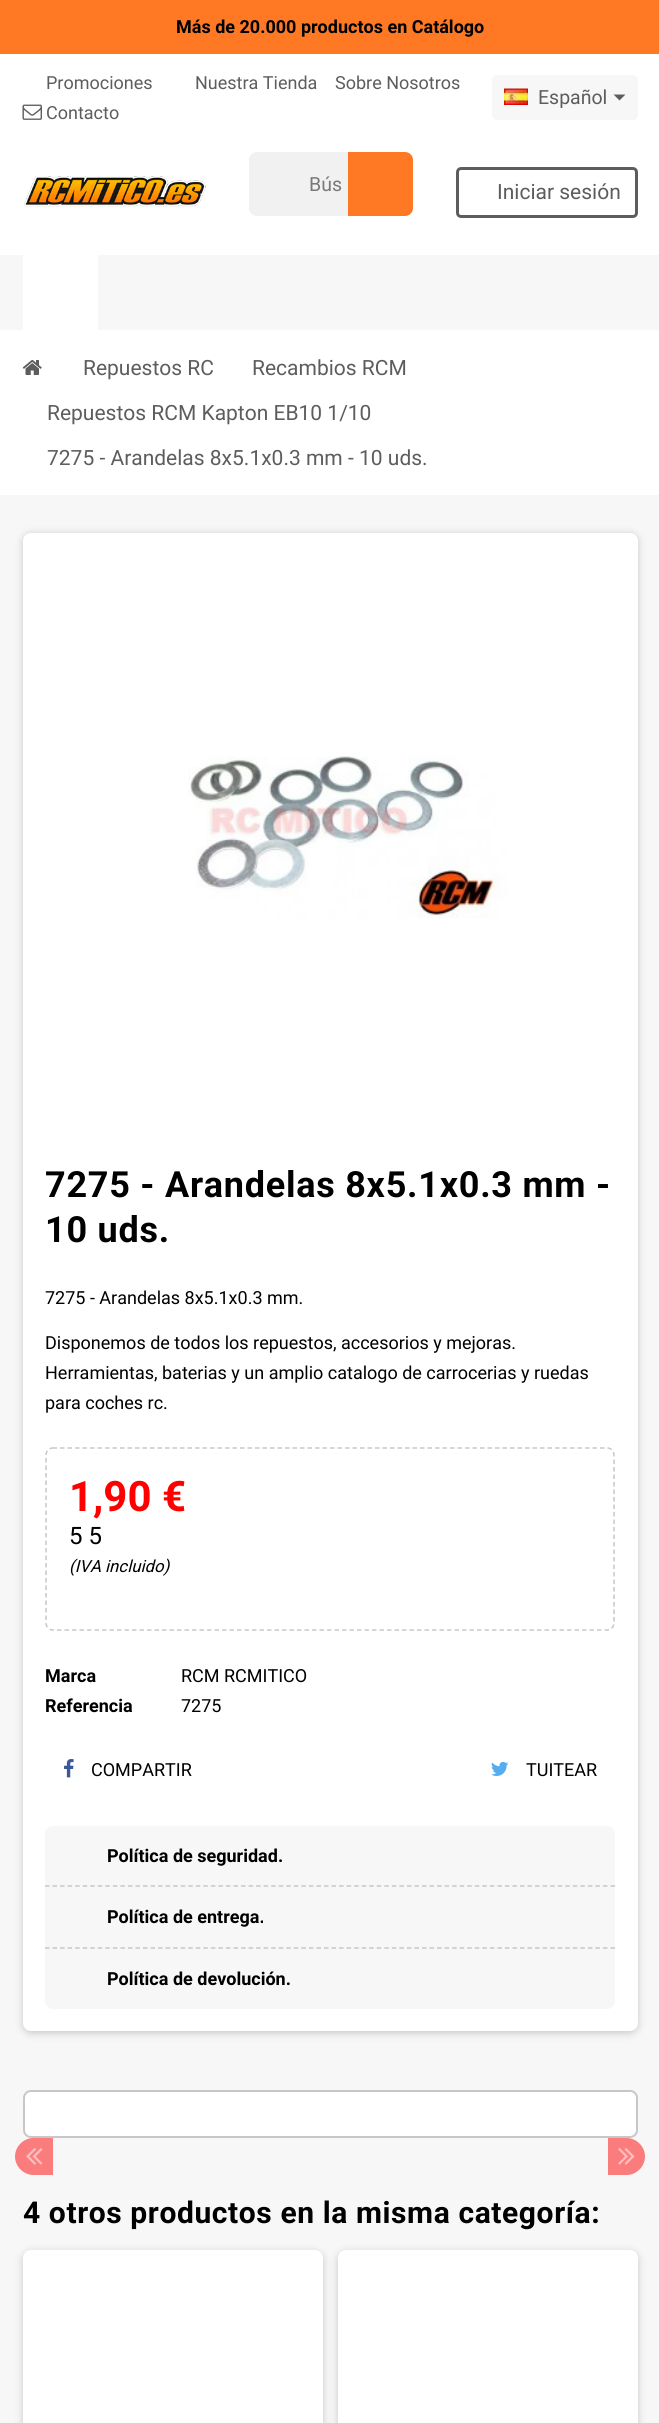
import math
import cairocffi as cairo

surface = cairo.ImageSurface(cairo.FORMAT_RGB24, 659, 2423)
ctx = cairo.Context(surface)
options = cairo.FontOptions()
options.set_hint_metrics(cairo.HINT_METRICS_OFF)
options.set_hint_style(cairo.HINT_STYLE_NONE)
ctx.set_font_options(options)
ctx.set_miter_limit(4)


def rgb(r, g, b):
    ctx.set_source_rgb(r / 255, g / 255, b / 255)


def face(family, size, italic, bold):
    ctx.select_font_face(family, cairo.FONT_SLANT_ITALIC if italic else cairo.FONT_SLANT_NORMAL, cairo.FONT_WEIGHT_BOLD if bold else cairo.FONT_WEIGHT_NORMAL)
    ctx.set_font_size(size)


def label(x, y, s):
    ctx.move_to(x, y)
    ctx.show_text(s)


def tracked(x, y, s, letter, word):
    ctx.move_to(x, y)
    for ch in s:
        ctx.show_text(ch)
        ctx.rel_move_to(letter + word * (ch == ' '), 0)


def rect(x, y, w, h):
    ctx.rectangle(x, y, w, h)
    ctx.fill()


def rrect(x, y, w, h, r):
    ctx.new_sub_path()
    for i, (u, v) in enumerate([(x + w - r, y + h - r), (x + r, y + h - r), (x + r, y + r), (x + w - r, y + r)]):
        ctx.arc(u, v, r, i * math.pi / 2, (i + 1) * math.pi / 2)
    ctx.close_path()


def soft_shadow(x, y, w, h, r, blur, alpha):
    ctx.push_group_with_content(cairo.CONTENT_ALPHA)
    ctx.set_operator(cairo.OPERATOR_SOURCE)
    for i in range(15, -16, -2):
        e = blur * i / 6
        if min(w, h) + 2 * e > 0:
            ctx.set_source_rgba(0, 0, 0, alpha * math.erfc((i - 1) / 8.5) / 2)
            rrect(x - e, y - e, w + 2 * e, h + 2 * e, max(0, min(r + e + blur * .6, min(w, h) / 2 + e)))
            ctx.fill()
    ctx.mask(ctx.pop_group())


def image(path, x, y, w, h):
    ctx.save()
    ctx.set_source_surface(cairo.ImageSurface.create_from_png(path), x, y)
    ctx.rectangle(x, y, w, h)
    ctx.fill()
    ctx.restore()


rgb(255, 255, 255)
ctx.paint()
rgb(255, 121, 37)
rect(0, 0, 659, 54)
face('Roboto', 18, 0, 1)
rgb(0, 0, 0)
label(176, 33, 'Más de 20.000 productos en Catálogo')
face('Roboto', 18, 0, 0)
rgb(93, 93, 93)
label(46, 89, 'Promociones')
label(195, 89, 'Nuestra Tienda')
label(335, 89, 'Sobre Nosotros')
image('image0.png', 22, 104, 20, 16)
label(46, 119, 'Contacto')
rgb(247, 247, 247)
rrect(492, 75, 146, 45, 5)
ctx.fill()
image('image1.png', 504, 88, 24, 17)
face('Roboto', 19.5, 0, 0)
rgb(93, 93, 93)
label(538, 104, 'Español')
ctx.new_path()
ctx.move_to(613.5, 94.5)
ctx.line_to(625.5, 94.5)
ctx.line_to(619.5, 100.5)
ctx.close_path()
ctx.fill()
image('image2.png', 24, 176, 182, 31)
rgb(241, 241, 241)
rrect(249, 152, 162, 64, 8)
ctx.fill()
rgb(121, 121, 121)
label(309, 191, 'Bús')
rgb(255, 121, 37)
ctx.new_path()
ctx.move_to(348, 152)
ctx.line_to(405, 152)
ctx.curve_to(409.5, 152, 413, 155.5, 413, 160)
ctx.line_to(413, 208)
ctx.curve_to(413, 212.5, 409.5, 216, 405, 216)
ctx.line_to(348, 216)
ctx.close_path()
ctx.fill()
rrect(457.5, 168.5, 179, 48, 3.5)
rgb(93, 93, 93)
ctx.set_line_width(3)
ctx.stroke()
face('Roboto', 21, 0, 0)
label(497, 199, 'Iniciar sesión')
rgb(247, 247, 247)
rect(0, 255, 659, 75)
rgb(255, 255, 255)
rect(23, 255, 75, 75)
rgb(247, 247, 247)
rect(0, 495, 659, 1928)
image('image3.png', 22, 360, 20, 15)
rgb(93, 93, 93)
label(83, 375, 'Repuestos RC')
label(252, 375, 'Recambios RCM')
label(47, 420, 'Repuestos RCM Kapton EB10 1/10')
label(47, 465, '7275 - Arandelas 8x5.1x0.3 mm - 10 uds.')
rgb(0, 0, 0)
soft_shadow(23, 534, 615, 1499, 8, 4, 0.2)
rgb(255, 255, 255)
rrect(23, 533, 615, 1498, 8)
ctx.fill()
image('image4.png', 188, 756, 320, 163)
face('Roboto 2', 36, 0, 1)
rgb(0, 0, 0)
tracked(45, 1197, '7275 - Arandelas 8x5.1x0.3 mm -', 0.75, 0)
tracked(45, 1242, '10 uds.', 0.75, 0)
face('Roboto', 18, 0, 0)
label(45, 1304, '7275 - Arandelas 8x5.1x0.3 mm.')
label(45, 1349, 'Disponemos de todos los repuestos, accesorios y mejoras.')
label(45, 1379, 'Herramientas, baterias y un amplio catalogo de carrocerias y ruedas')
label(45, 1409, 'para coches rc.')
ctx.new_path()
ctx.move_to(52.5, 1448)
ctx.line_to(607.5, 1448)
ctx.curve_to(611, 1448, 614, 1451.5, 614, 1455)
ctx.line_to(614, 1623)
ctx.curve_to(614, 1626.5, 611, 1630, 607.5, 1630)
ctx.line_to(52.5, 1630)
ctx.curve_to(49, 1630, 46, 1626.5, 46, 1623)
ctx.line_to(46, 1455)
ctx.curve_to(46, 1451.5, 49, 1448, 52.5, 1448)
ctx.close_path()
rgb(199, 199, 199)
ctx.set_line_width(1.5)
ctx.set_dash([4.5, 3])
ctx.stroke()
face('Roboto', 42, 0, 1)
rgb(255, 0, 0)
label(69, 1511, '1,90 €')
face('Roboto', 24, 0, 0)
rgb(0, 0, 0)
label(69, 1544, '5 5')
face('Roboto', 16.75, 1, 0)
label(69, 1572, '(IVA incluido)')
face('Roboto', 18, 0, 1)
label(45, 1682, 'Marca')
face('Roboto', 18, 0, 0)
label(181, 1682, 'RCM RCMITICO')
face('Roboto', 18, 0, 1)
label(45, 1712, 'Referencia')
face('Roboto', 18, 0, 0)
label(181, 1712, '7275')
image('image5.png', 64, 1759, 10, 19)
label(91, 1776, 'COMPARTIR')
image('image6.png', 491, 1761, 18, 15)
label(526, 1776, 'TUITEAR')
rgb(247, 247, 247)
rrect(45, 1826, 570, 183, 8)
ctx.fill()
face('Roboto', 18, 0, 1)
rgb(0, 0, 0)
label(107, 1862, 'Política de seguridad.')
ctx.new_path()
ctx.move_to(45, 1886)
ctx.line_to(615, 1886)
rgb(199, 199, 199)
ctx.set_dash([4.5, 3.04])
ctx.stroke()
rgb(0, 0, 0)
label(107, 1923, 'Política de entrega.')
ctx.new_path()
ctx.move_to(45, 1948)
ctx.line_to(615, 1948)
rgb(199, 199, 199)
ctx.stroke()
rgb(0, 0, 0)
label(107, 1985, 'Política de devolución.')
rgb(255, 255, 255)
rrect(24, 2091, 613, 46, 7)
ctx.fill_preserve()
rgb(199, 199, 199)
ctx.set_line_width(2)
ctx.set_dash([])
ctx.stroke()
rgb(251, 124, 124)
ctx.new_path()
ctx.move_to(33.5, 2138)
ctx.line_to(53, 2138)
ctx.line_to(53, 2175)
ctx.line_to(33.5, 2175)
ctx.curve_to(23.5, 2175, 15, 2166.5, 15, 2156.5)
ctx.curve_to(15, 2146.5, 23.5, 2138, 33.5, 2138)
ctx.close_path()
ctx.fill()
image('image7.png', 26, 2148, 17, 17)
ctx.new_path()
ctx.move_to(608, 2138)
ctx.line_to(626.5, 2138)
ctx.curve_to(636.5, 2138, 645, 2146.5, 645, 2156.5)
ctx.curve_to(645, 2166.5, 636.5, 2175, 626.5, 2175)
ctx.line_to(608, 2175)
ctx.close_path()
ctx.fill()
image('image8.png', 618, 2148, 17, 17)
rgb(0, 0, 0)
soft_shadow(23, 2252, 300, 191, 8, 4, 0.2)
rgb(255, 255, 255)
rrect(23, 2250, 300, 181, 8)
ctx.fill()
rgb(0, 0, 0)
soft_shadow(338, 2252, 300, 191, 8, 4, 0.2)
rgb(255, 255, 255)
rrect(338, 2250, 300, 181, 8)
ctx.fill()
face('Roboto 2', 30, 0, 1)
rgb(0, 0, 0)
tracked(23, 2223, '4 otros productos en la misma categoría:', 0.6, 0)
surface.write_to_png('render.png')
